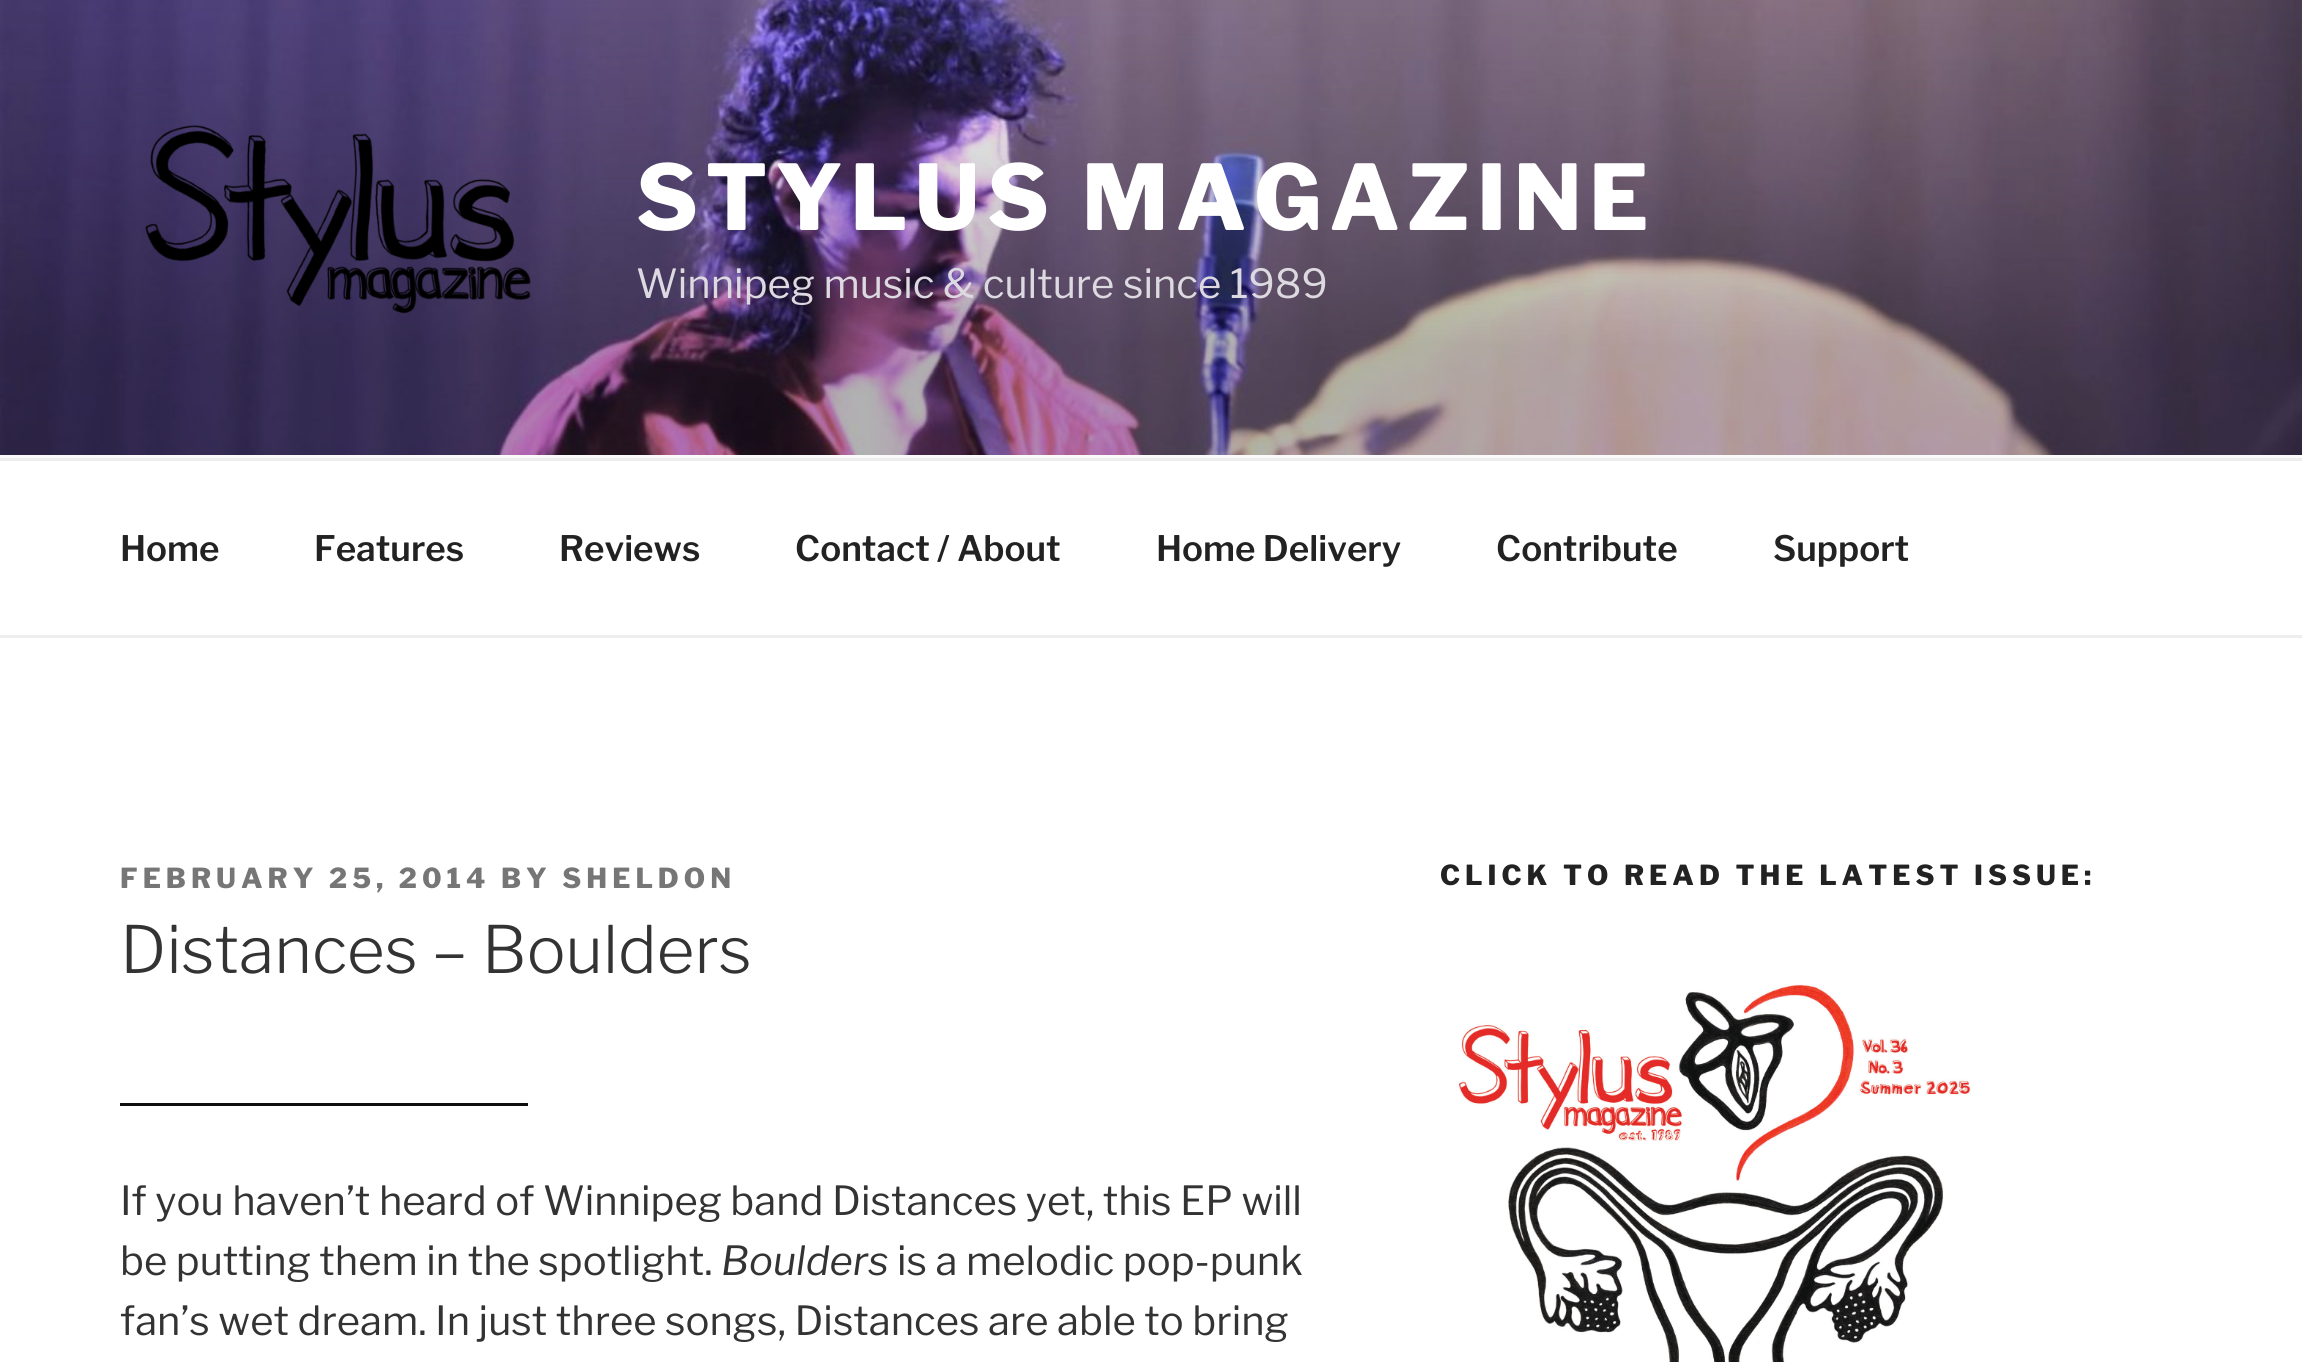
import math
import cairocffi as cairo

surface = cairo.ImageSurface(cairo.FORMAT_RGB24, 2302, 1362)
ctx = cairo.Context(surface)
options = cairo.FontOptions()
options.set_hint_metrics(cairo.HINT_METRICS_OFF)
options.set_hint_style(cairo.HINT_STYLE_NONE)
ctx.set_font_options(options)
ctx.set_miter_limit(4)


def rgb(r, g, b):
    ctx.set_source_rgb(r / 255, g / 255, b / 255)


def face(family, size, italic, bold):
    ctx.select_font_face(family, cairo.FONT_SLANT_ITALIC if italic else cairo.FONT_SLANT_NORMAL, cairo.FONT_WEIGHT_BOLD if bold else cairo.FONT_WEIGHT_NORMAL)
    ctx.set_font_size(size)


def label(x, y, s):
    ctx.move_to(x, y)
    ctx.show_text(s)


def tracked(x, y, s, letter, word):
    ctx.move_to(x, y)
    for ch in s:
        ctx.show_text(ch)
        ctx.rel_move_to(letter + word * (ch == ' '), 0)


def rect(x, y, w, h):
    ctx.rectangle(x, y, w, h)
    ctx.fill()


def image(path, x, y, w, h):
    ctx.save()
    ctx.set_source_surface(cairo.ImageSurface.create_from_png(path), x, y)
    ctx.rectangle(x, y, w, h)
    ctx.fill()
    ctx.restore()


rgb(255, 255, 255)
ctx.paint()
rgb(250, 250, 250)
rect(0, 455, 2302, 3)
image('image0.png', 0, 0, 2302, 455)
image('image1.png', 145, 125, 386, 189)
face('Libre Franklin Thin', 90, 0, 0)
rgb(255, 255, 255)
tracked(636, 230, 'STYLUS MAGAZINE', 7.25, 0)
face('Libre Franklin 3 Thin', 40, 0, 0)
rgb(221, 217, 224)
label(636, 298, 'Winnipeg music & culture since 1989')
rgb(238, 238, 238)
rect(0, 458, 2302, 3)
rect(0, 635, 2302, 3)
face('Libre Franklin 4 Thin', 35, 0, 0)
rgb(34, 34, 34)
label(120, 561, 'Home')
label(314, 561, 'Features')
label(559, 561, 'Reviews')
label(795, 561, 'Contact / About')
label(1156, 561, 'Home Delivery')
label(1496, 561, 'Contribute')
label(1773, 561, 'Support')
face('Libre Franklin Thin', 27.5, 0, 0)
rgb(118, 118, 118)
tracked(120, 888, 'FEBRUARY 25, 2014 BY SHELDON', 5, 0)
face('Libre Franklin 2 Thin', 65, 0, 0)
rgb(51, 51, 51)
label(120, 973, 'Distances – Boulders')
rgb(15, 15, 15)
rect(120, 1103, 408, 3)
face('Libre Franklin 3 Thin', 40, 0, 0)
rgb(51, 51, 51)
label(120, 1215, 'If you haven’t heard of Winnipeg band Distances yet, this EP will')
label(120, 1275, 'be putting them in the spotlight.')
face('Libre Franklin Thin', 40, 1, 0)
label(721, 1275, 'Boulders')
face('Libre Franklin 3 Thin', 40, 0, 0)
label(897, 1275, 'is a melodic pop-punk')
label(120, 1335, 'fan’s wet dream. In just three songs, Distances are able to bring')
face('Libre Franklin Thin', 27.5, 0, 0)
rgb(34, 34, 34)
tracked(1440, 885, 'CLICK TO READ THE LATEST ISSUE:', 5, 0)
image('image2.png', 1458, 984, 513, 378)
surface.write_to_png('render.png')
